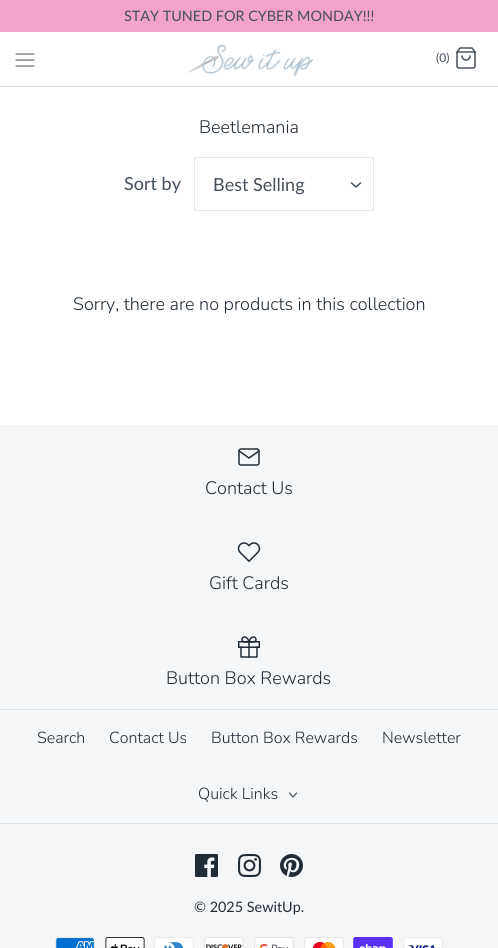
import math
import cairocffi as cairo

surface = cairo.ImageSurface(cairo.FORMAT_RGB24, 498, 948)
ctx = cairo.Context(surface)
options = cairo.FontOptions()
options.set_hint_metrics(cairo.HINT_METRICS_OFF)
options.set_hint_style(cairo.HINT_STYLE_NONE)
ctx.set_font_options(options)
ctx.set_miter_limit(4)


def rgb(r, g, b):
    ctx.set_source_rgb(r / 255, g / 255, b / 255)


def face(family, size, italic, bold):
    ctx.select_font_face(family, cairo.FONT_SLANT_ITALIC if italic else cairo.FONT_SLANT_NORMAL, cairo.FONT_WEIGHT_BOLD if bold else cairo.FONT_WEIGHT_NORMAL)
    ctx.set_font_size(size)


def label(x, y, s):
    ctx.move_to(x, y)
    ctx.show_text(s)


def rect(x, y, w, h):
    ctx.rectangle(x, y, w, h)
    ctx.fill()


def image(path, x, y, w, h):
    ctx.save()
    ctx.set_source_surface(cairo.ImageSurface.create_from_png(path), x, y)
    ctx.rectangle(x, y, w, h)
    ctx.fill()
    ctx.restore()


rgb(255, 255, 255)
ctx.paint()
rgb(242, 162, 203)
rect(0, 0, 498, 32)
face('Lato', 14.4, 0, 0)
rgb(69, 79, 91)
label(124, 21, 'STAY TUNED FOR CYBER MONDAY!!!')
rgb(223, 227, 232)
rect(0, 86, 498, 1)
image('image0.png', 15, 53, 20, 14)
image('image1.png', 188, 45, 125, 31)
face('Lato', 12, 0, 0)
rgb(69, 79, 91)
label(436, 62, '(0)')
image('image2.png', 456, 47, 20, 22)
face('Nunito Light', 18, 0, 0)
rgb(33, 43, 54)
label(199, 133, 'Beetlemania')
face('Lato', 18, 0, 0)
rgb(69, 79, 91)
label(124, 190, 'Sort by')
ctx.rectangle(194.5, 157.5, 179, 53)
rgb(227, 229, 230)
ctx.set_line_width(1)
ctx.stroke()
rgb(69, 79, 91)
label(213, 191, 'Best Selling')
ctx.new_path()
ctx.move_to(351.5, 183)
ctx.line_to(356, 187)
ctx.line_to(360.5, 183)
ctx.set_line_width(1.5)
ctx.set_line_cap(cairo.LINE_CAP_ROUND)
ctx.set_line_join(cairo.LINE_JOIN_ROUND)
ctx.stroke()
face('Nunito Light', 18, 0, 0)
rgb(33, 43, 54)
label(73, 310, 'Sorry, there are no products in this collection')
rgb(244, 246, 248)
rect(0, 425, 498, 523)
image('image3.png', 238, 448, 22, 18)
rgb(33, 43, 54)
label(205, 494, 'Contact Us')
image('image4.png', 237, 542, 24, 20)
label(209, 589, 'Gift Cards')
image('image5.png', 238, 636, 22, 22)
label(166, 684, 'Button Box Rewards')
rgb(223, 227, 232)
rect(0, 709, 498, 1)
rect(0, 823, 498, 1)
face('Nunito Light', 16, 0, 0)
rgb(33, 43, 54)
label(37, 743, 'Search')
label(109, 743, 'Contact Us')
label(211, 743, 'Button Box Rewards')
label(382, 743, 'Newsletter')
label(198, 799, 'Quick Links')
ctx.new_path()
ctx.move_to(289.5, 793)
ctx.line_to(293, 797)
ctx.line_to(296.5, 793)
rgb(69, 79, 91)
ctx.set_line_width(1.2)
ctx.stroke()
image('image6.png', 195, 854, 23, 23)
image('image7.png', 238, 854, 23, 23)
image('image8.png', 280, 854, 23, 23)
face('Lato', 14.4, 0, 0)
rgb(33, 43, 54)
label(194, 912, '© 2025 SewitUp.')
image('image9.png', 55, 937, 40, 11)
image('image10.png', 105, 937, 40, 11)
image('image11.png', 154, 937, 40, 11)
image('image12.png', 204, 937, 40, 11)
image('image13.png', 254, 937, 40, 11)
image('image14.png', 304, 937, 40, 11)
image('image15.png', 353, 937, 40, 11)
image('image16.png', 403, 937, 40, 11)
surface.write_to_png('render.png')
